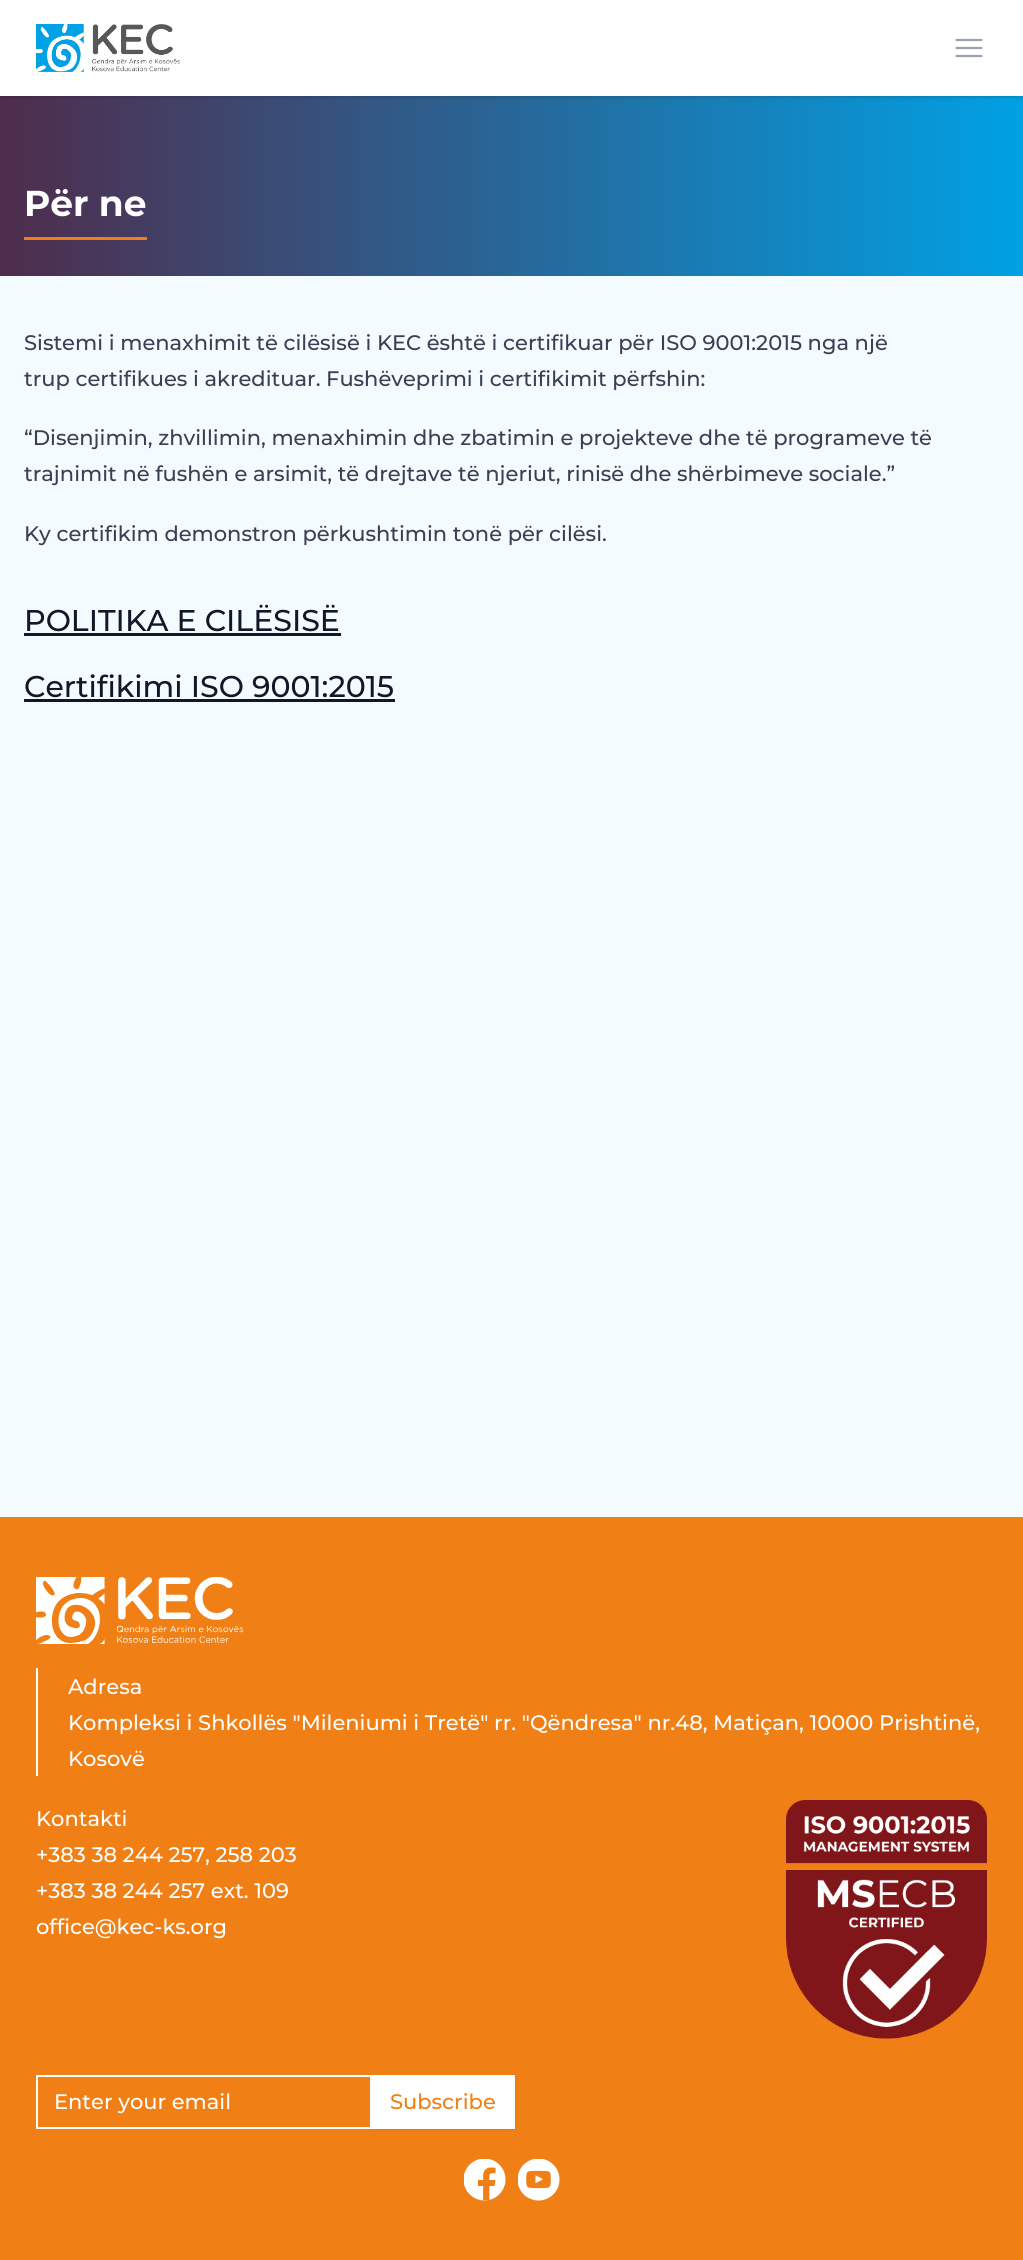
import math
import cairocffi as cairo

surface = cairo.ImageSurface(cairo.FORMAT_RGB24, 1023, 2260)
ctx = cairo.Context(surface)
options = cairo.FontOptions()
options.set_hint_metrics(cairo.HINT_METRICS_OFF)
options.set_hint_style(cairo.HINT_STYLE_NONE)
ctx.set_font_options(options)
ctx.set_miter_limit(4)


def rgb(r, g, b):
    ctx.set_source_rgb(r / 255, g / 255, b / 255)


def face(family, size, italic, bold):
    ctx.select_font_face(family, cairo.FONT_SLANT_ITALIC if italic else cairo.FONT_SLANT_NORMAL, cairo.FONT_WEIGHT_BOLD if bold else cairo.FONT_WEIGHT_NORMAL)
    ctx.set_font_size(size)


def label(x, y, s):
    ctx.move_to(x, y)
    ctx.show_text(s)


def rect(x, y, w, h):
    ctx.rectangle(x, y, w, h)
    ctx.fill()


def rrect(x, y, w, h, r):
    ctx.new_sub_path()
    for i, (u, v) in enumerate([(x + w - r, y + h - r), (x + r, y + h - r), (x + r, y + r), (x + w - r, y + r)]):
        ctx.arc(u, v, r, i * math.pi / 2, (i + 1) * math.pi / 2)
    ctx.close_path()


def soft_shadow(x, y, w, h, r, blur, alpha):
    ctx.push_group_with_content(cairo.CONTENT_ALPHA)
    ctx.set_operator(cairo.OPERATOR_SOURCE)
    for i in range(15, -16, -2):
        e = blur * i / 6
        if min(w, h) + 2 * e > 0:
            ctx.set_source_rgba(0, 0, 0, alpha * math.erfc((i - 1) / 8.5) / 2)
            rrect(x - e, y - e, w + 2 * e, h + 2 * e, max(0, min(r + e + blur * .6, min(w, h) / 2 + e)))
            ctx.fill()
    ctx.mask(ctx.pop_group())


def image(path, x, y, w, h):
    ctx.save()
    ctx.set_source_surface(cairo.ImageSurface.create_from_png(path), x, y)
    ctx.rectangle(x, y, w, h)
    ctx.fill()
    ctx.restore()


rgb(243, 251, 255)
ctx.paint()
gradient = cairo.LinearGradient(0, 186, 1023, 186)
gradient.add_color_stop_rgba(0, 0.31, 0.173, 0.298, 1)
gradient.add_color_stop_rgba(1, 0, 0.631, 0.894, 1)
ctx.set_source(gradient)
rect(0, 96, 1023, 180)
rgb(0, 0, 0)
soft_shadow(2, 3, 1020, 93, 0, 1.5, 0.1)
soft_shadow(0, 2, 1023, 96, 0, 2, 0.1)
rgb(255, 255, 255)
rect(0, 0, 1023, 96)
image('image0.png', 36, 24, 144, 48)
ctx.new_path()
ctx.move_to(956.5, 40)
ctx.line_to(981.5, 40)
ctx.move_to(956.5, 48)
ctx.line_to(981.5, 48)
ctx.move_to(956.5, 56)
ctx.line_to(981.5, 56)
rgb(156, 163, 175)
ctx.set_line_width(2.2)
ctx.set_line_cap(cairo.LINE_CAP_ROUND)
ctx.set_line_join(cairo.LINE_JOIN_ROUND)
ctx.stroke()
face('Montserrat', 36, 0, 1)
rgb(255, 255, 255)
label(24, 216, 'Për ne')
rgb(240, 127, 21)
rect(24, 237, 123, 3)
face('Montserrat Medium', 21, 0, 0)
rgb(55, 65, 81)
label(24, 350, 'Sistemi i menaxhimit të cilësisë i KEC është i certifikuar për ISO 9001:2015 nga një')
label(24, 386, 'trup certifikues i akredituar. Fushëveprimi i certifikimit përfshin:')
label(24, 445, '“Disenjimin, zhvillimin, menaxhimin dhe zbatimin e projekteve dhe të programeve të')
label(24, 481, 'trajnimit në fushën e arsimit, të drejtave të njeriut, rinisë dhe shërbimeve sociale.”')
label(24, 541, 'Ky certifikim demonstron përkushtimin tonë për cilësi.')
face('Montserrat Medium', 30, 0, 0)
rgb(17, 24, 39)
label(24, 631, 'POLITIKA E CILËSISË')
rect(24, 633, 317, 3)
label(24, 697, 'Certifikimi ISO 9001:2015')
rect(24, 699, 371, 3)
rgb(240, 127, 21)
rect(0, 1517, 1023, 743)
image('image1.png', 36, 1577, 207, 67)
rgb(255, 255, 255)
rect(36, 1668, 2, 108)
face('Montserrat Medium', 21, 0, 0)
label(68, 1694, 'Adresa')
label(68, 1730, 'Kompleksi i Shkollës "Mileniumi i Tretë" rr. "Qëndresa" nr.48, Matiçan, 10000 Prishtinë,')
label(68, 1766, 'Kosovë')
label(36, 1826, 'Kontakti')
label(36, 1862, '+383 38 244 257, 258 203')
label(36, 1898, '+383 38 244 257 ext. 109')
label(36, 1934, 'office@kec-ks.org')
image('image2.png', 786, 1800, 201, 239)
ctx.rectangle(37, 2076, 334, 52)
ctx.set_line_width(2)
ctx.set_line_cap(cairo.LINE_CAP_BUTT)
ctx.set_line_join(cairo.LINE_JOIN_MITER)
ctx.stroke()
label(54, 2109, 'Enter your email')
rgb(0, 0, 0)
soft_shadow(372, 2076, 143, 54, 0, 1.5, 0.05)
rgb(255, 255, 255)
rect(372, 2075, 143, 54)
rgb(240, 127, 21)
label(390, 2109, 'Subscribe')
image('image3.png', 464, 2159, 42, 42)
image('image4.png', 518, 2159, 42, 42)
surface.write_to_png('render.png')
